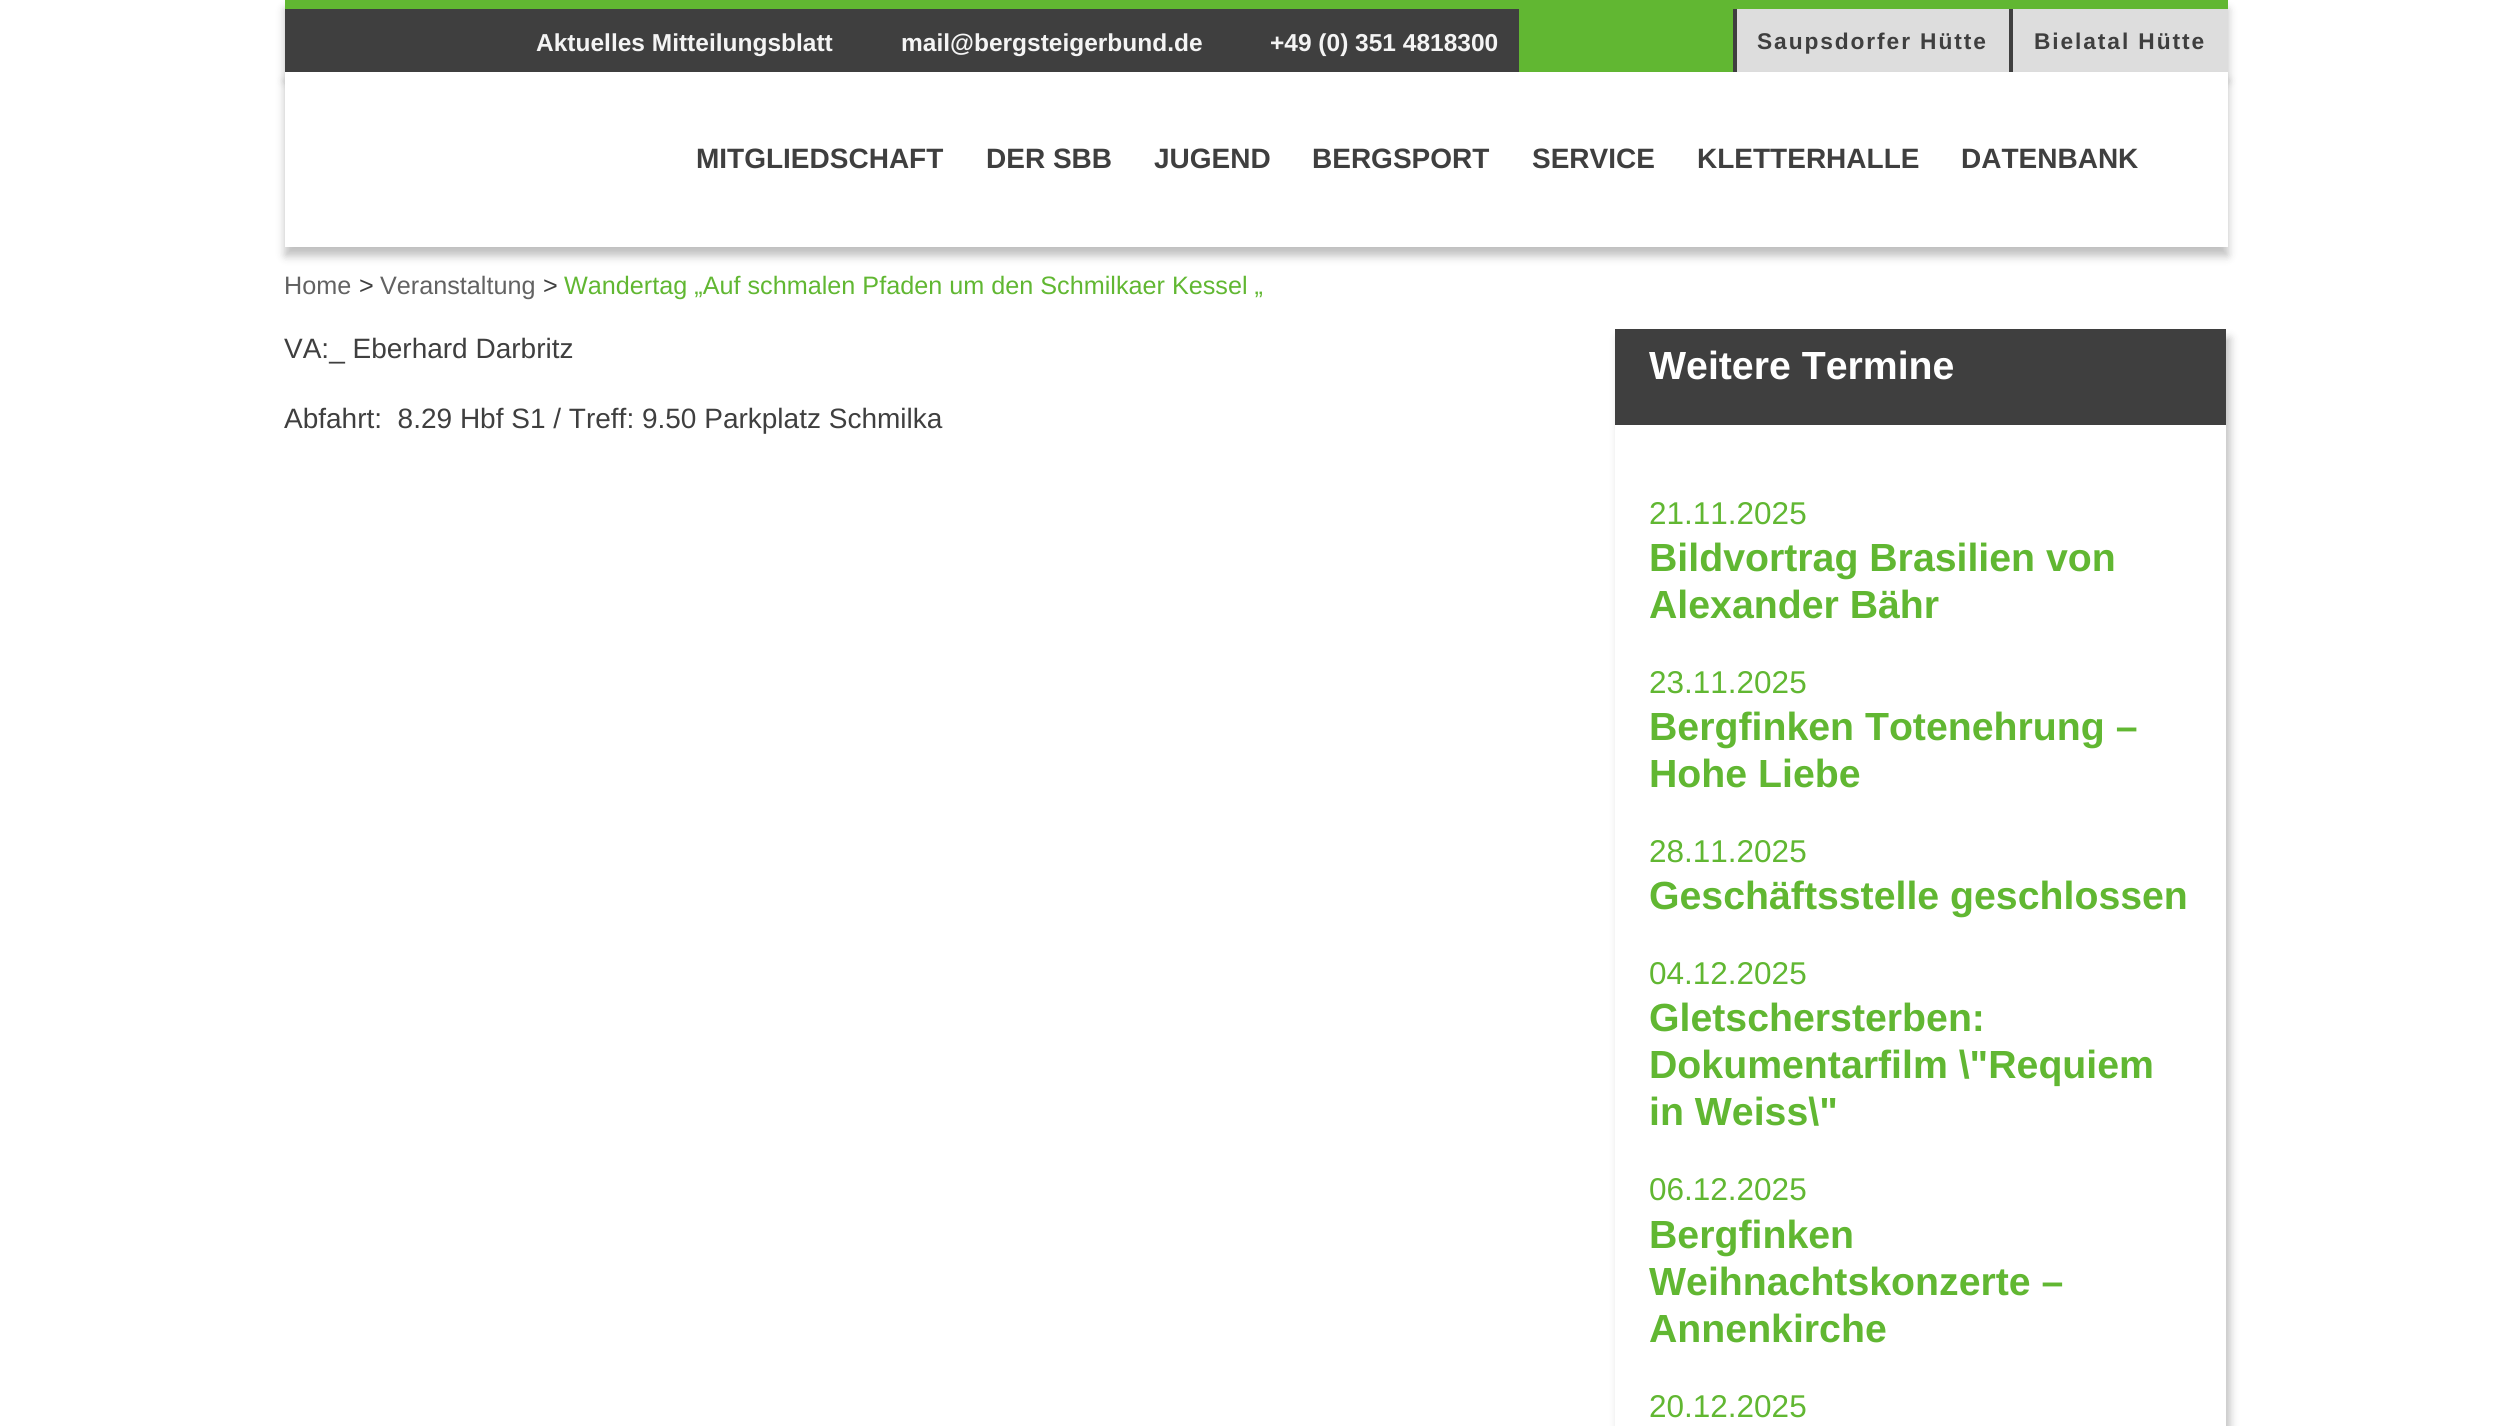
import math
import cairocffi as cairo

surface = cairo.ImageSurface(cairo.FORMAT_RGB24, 2511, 1426)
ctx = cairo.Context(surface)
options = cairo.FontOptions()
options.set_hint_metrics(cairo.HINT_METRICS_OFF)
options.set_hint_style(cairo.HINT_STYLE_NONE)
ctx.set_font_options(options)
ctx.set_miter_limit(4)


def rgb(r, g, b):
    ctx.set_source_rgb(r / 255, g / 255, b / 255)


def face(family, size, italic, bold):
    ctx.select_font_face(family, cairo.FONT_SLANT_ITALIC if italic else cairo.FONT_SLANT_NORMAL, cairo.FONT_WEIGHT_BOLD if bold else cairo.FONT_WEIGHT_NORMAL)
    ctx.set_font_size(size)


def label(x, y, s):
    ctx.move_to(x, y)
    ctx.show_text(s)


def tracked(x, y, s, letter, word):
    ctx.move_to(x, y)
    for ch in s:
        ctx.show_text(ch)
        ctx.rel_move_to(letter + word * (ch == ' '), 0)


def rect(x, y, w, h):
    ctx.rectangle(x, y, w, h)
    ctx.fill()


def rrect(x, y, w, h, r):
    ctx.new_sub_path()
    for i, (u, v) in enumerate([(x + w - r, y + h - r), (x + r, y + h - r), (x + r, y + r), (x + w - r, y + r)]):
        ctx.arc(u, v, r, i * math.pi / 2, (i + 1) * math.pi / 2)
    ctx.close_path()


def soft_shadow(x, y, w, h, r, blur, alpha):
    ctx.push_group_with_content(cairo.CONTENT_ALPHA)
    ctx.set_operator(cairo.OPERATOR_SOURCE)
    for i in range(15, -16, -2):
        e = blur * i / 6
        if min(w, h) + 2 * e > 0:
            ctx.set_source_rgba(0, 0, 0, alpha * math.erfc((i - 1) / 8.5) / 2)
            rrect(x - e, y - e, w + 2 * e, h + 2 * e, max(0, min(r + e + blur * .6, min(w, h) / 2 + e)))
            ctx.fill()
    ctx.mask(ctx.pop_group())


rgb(255, 255, 255)
ctx.paint()
rgb(0, 0, 0)
soft_shadow(285, 9, 1943, 72, 0, 4.5, 0.25)
rgb(63, 63, 63)
rect(285, 9, 1234, 63)
rgb(97, 183, 50)
rect(285, 0, 1943, 9)
face('Liberation Sans', 24.5, 0, 1)
rgb(244, 244, 244)
label(536, 51, 'Aktuelles Mitteilungsblatt')
label(901, 51, 'mail@bergsteigerbund.de')
label(1270, 51, '+49 (0) 351 4818300')
rgb(97, 183, 50)
rect(1519, 9, 214, 63)
rgb(221, 221, 221)
rect(1737, 10, 272, 62)
rgb(63, 63, 63)
rect(1733, 9, 4, 63)
face('Liberation Sans', 22.75, 0, 1)
tracked(1757, 49, 'Saupsdorfer Hütte', 1.9, 0)
rgb(221, 221, 221)
rect(2013, 9, 215, 63)
rgb(63, 63, 63)
rect(2009, 9, 4, 63)
tracked(2034, 49, 'Bielatal Hütte', 1.9, 0)
rgb(0, 0, 0)
soft_shadow(285, 81, 1943, 175, 0, 4.5, 0.25)
rgb(255, 255, 255)
rect(285, 72, 1943, 175)
face('Liberation Sans', 28, 0, 1)
rgb(63, 63, 63)
label(696, 168, 'MITGLIEDSCHAFT')
label(986, 168, 'DER SBB')
label(1154, 168, 'JUGEND')
label(1312, 168, 'BERGSPORT')
label(1532, 168, 'SERVICE')
label(1697, 168, 'KLETTERHALLE')
label(1961, 168, 'DATENBANK')
face('Liberation Sans', 25.2, 0, 0)
rgb(98, 98, 98)
label(284, 294, 'Home')
rgb(63, 63, 63)
label(359, 294, '>')
rgb(98, 98, 98)
label(380, 294, 'Veranstaltung')
rgb(63, 63, 63)
label(543, 294, '>')
rgb(97, 183, 50)
label(564, 294, 'Wandertag „Auf schmalen Pfaden um den Schmilkaer Kessel „')
face('Liberation Sans', 28, 0, 0)
rgb(63, 63, 63)
label(284, 358, 'VA:_ Eberhard Darbritz')
label(284, 428, 'Abfahrt:  8.29 Hbf S1 / Treff: 9.50 Parkplatz Schmilka')
rgb(0, 0, 0)
soft_shadow(1619, 338, 611, 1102, 0, 4.5, 0.25)
rgb(255, 255, 255)
rect(1615, 425, 611, 1001)
rgb(63, 63, 63)
rect(1615, 329, 611, 96)
face('Liberation Sans', 39.25, 0, 1)
rgb(255, 255, 255)
label(1649, 379, 'Weitere Termine')
face('Liberation Sans', 31.5, 0, 0)
rgb(97, 183, 50)
label(1649, 524, '21.11.2025')
face('Liberation Sans', 39.25, 0, 1)
label(1649, 571, 'Bildvortrag Brasilien von')
label(1649, 618, 'Alexander Bähr')
face('Liberation Sans', 31.5, 0, 0)
label(1649, 693, '23.11.2025')
face('Liberation Sans', 39.25, 0, 1)
label(1649, 740, 'Bergfinken Totenehrung –')
label(1649, 787, 'Hohe Liebe')
face('Liberation Sans', 31.5, 0, 0)
label(1649, 862, '28.11.2025')
face('Liberation Sans', 39.25, 0, 1)
label(1649, 909, 'Geschäftsstelle geschlossen')
face('Liberation Sans', 31.5, 0, 0)
label(1649, 984, '04.12.2025')
face('Liberation Sans', 39.25, 0, 1)
label(1649, 1031, 'Gletschersterben:')
label(1649, 1078, 'Dokumentarfilm \\"Requiem')
label(1649, 1125, 'in Weiss\\"')
face('Liberation Sans', 31.5, 0, 0)
label(1649, 1200, '06.12.2025')
face('Liberation Sans', 39.25, 0, 1)
label(1649, 1248, 'Bergfinken')
label(1649, 1295, 'Weihnachtskonzerte –')
label(1649, 1342, 'Annenkirche')
face('Liberation Sans', 31.5, 0, 0)
label(1649, 1417, '20.12.2025')
surface.write_to_png('render.png')
